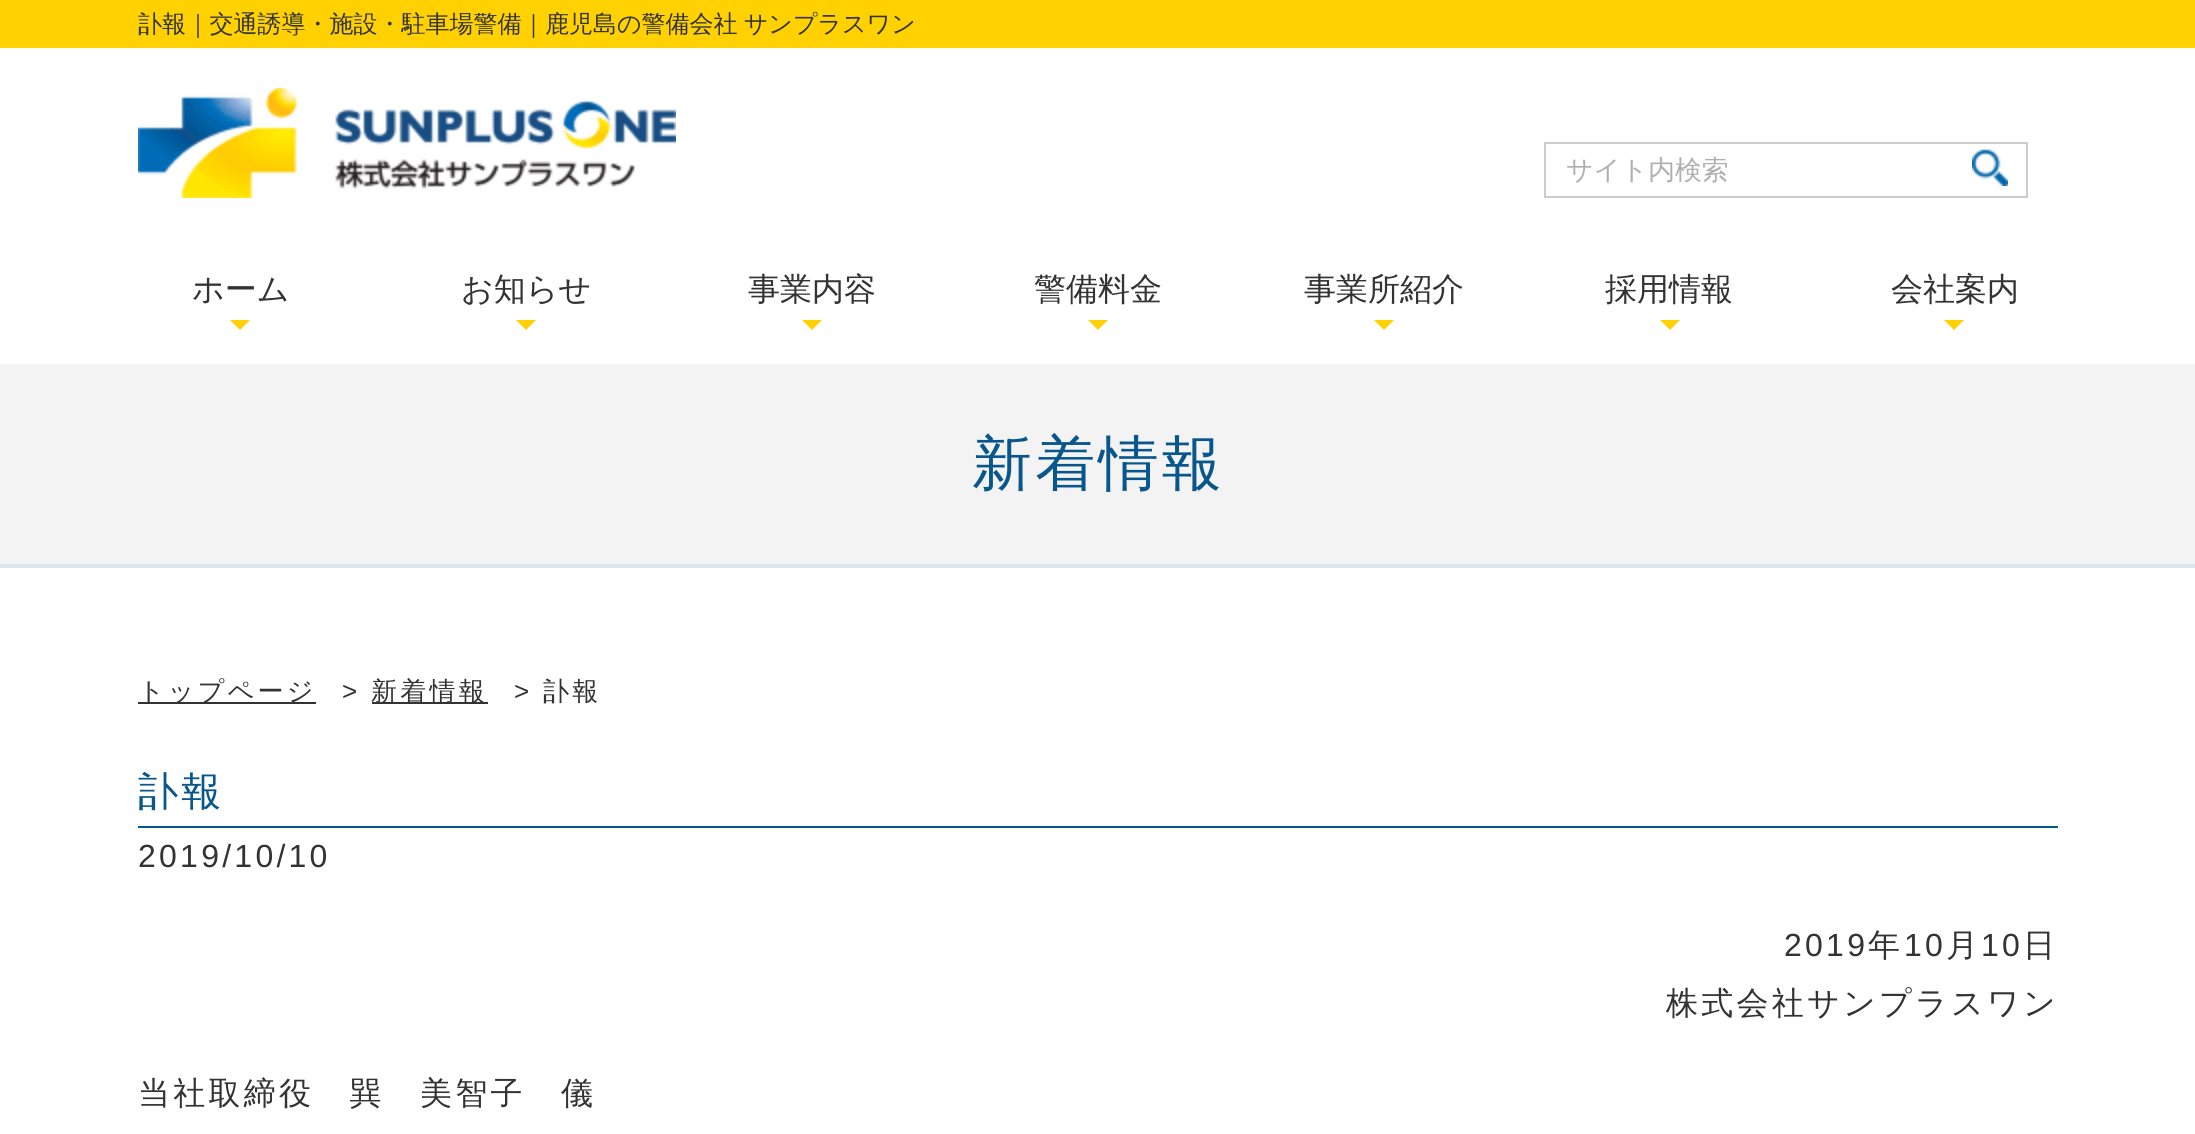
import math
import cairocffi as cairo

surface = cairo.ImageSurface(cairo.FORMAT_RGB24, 2195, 1134)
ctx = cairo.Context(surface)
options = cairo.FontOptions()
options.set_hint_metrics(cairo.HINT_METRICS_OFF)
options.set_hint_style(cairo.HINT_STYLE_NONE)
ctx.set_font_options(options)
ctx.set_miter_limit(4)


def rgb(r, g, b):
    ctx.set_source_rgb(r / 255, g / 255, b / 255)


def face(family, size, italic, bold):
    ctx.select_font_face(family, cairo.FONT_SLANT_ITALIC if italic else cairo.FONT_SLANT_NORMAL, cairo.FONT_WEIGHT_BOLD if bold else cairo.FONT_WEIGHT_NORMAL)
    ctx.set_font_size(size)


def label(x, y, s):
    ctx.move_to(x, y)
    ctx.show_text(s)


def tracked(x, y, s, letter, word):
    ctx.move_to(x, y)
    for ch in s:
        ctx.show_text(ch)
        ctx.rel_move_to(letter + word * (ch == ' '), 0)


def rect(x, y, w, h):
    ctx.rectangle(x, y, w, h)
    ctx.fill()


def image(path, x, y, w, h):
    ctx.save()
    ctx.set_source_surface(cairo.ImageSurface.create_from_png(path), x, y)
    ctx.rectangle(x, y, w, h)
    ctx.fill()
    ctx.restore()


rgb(255, 255, 255)
ctx.paint()
rgb(255, 209, 0)
rect(0, 0, 2195, 48)
face('WenQuanYi Zen Hei Medium', 24, 0, 0)
rgb(51, 51, 51)
tracked(138, 32, '訃報｜交通誘導・施設・駐車場警備｜鹿児島の警備会社 サンプラスワン', 0, -1)
image('image0.png', 138, 88, 538, 110)
ctx.rectangle(1545, 143, 482, 54)
rgb(204, 204, 204)
ctx.stroke()
face('WenQuanYi Zen Hei Medium', 26.75, 0, 0)
rgb(175, 175, 175)
label(1566, 179, 'サイト内検索')
image('image1.png', 1972, 149, 36, 37)
face('WenQuanYi Zen Hei Medium', 32, 0, 0)
rgb(51, 51, 51)
label(192, 300, 'ホーム')
rgb(255, 209, 0)
ctx.new_path()
ctx.move_to(230, 320)
ctx.line_to(250, 320)
ctx.line_to(240, 330)
ctx.close_path()
ctx.fill()
rgb(51, 51, 51)
label(461, 300, 'お知らせ')
rgb(255, 209, 0)
ctx.new_path()
ctx.move_to(516, 320)
ctx.line_to(536, 320)
ctx.line_to(526, 330)
ctx.close_path()
ctx.fill()
rgb(51, 51, 51)
label(748, 300, '事業内容')
rgb(255, 209, 0)
ctx.new_path()
ctx.move_to(802, 320)
ctx.line_to(822, 320)
ctx.line_to(812, 330)
ctx.close_path()
ctx.fill()
rgb(51, 51, 51)
label(1034, 300, '警備料金')
rgb(255, 209, 0)
ctx.new_path()
ctx.move_to(1088, 320)
ctx.line_to(1108, 320)
ctx.line_to(1098, 330)
ctx.close_path()
ctx.fill()
rgb(51, 51, 51)
label(1304, 300, '事業所紹介')
rgb(255, 209, 0)
ctx.new_path()
ctx.move_to(1374, 320)
ctx.line_to(1394, 320)
ctx.line_to(1384, 330)
ctx.close_path()
ctx.fill()
rgb(51, 51, 51)
label(1605, 300, '採用情報')
rgb(255, 209, 0)
ctx.new_path()
ctx.move_to(1660, 320)
ctx.line_to(1680, 320)
ctx.line_to(1670, 330)
ctx.close_path()
ctx.fill()
rgb(51, 51, 51)
label(1891, 300, '会社案内')
rgb(255, 209, 0)
ctx.new_path()
ctx.move_to(1944, 320)
ctx.line_to(1964, 320)
ctx.line_to(1954, 330)
ctx.close_path()
ctx.fill()
rgb(243, 243, 243)
rect(0, 364, 2195, 200)
rgb(222, 230, 236)
rect(0, 564, 2195, 4)
face('WenQuanYi Zen Hei Medium', 60, 0, 0)
rgb(7, 86, 140)
tracked(972, 484, '新着情報', 3.25, 0)
rgb(51, 51, 51)
rect(138, 702, 178, 2)
face('WenQuanYi Zen Hei Medium', 26, 0, 0)
tracked(138, 700, 'トップページ', 3.25, 0)
face('Liberation Sans', 26, 0, 0)
tracked(342, 700, '>', 3.25, 0)
rect(372, 702, 116, 2)
face('WenQuanYi Zen Hei Medium', 26, 0, 0)
tracked(371, 700, '新着情報', 3.25, 0)
face('Liberation Sans', 26, 0, 0)
tracked(514, 700, '>', 3.25, 0)
face('WenQuanYi Zen Hei Medium', 26, 0, 0)
tracked(543, 700, '訃報', 3.25, 0)
rgb(7, 86, 140)
rect(138, 826, 1920, 2)
face('WenQuanYi Zen Hei Medium', 40, 0, 0)
tracked(138, 805, '訃報', 3.25, 0)
face('Liberation Sans', 32, 0, 0)
rgb(51, 51, 51)
tracked(138, 867, '2019/10/10', 3.25, 0)
tracked(1784, 956, '2019', 3.25, 0)
face('WenQuanYi Zen Hei Medium', 32, 0, 0)
tracked(1868, 956, '年', 3.25, 0)
face('Liberation Sans', 32, 0, 0)
tracked(1904, 956, '10', 3.25, 0)
face('WenQuanYi Zen Hei Medium', 32, 0, 0)
tracked(1946, 956, '月', 3.25, 0)
face('Liberation Sans', 32, 0, 0)
tracked(1981, 956, '10', 3.25, 0)
face('WenQuanYi Zen Hei Medium', 32, 0, 0)
tracked(2023, 956, '日', 3.25, 0)
tracked(1666, 1014, '株式会社サンプラスワン', 3.25, 0)
tracked(138, 1104, '当社取締役　巽　美智子　儀', 3.25, 0)
surface.write_to_png('render.png')
